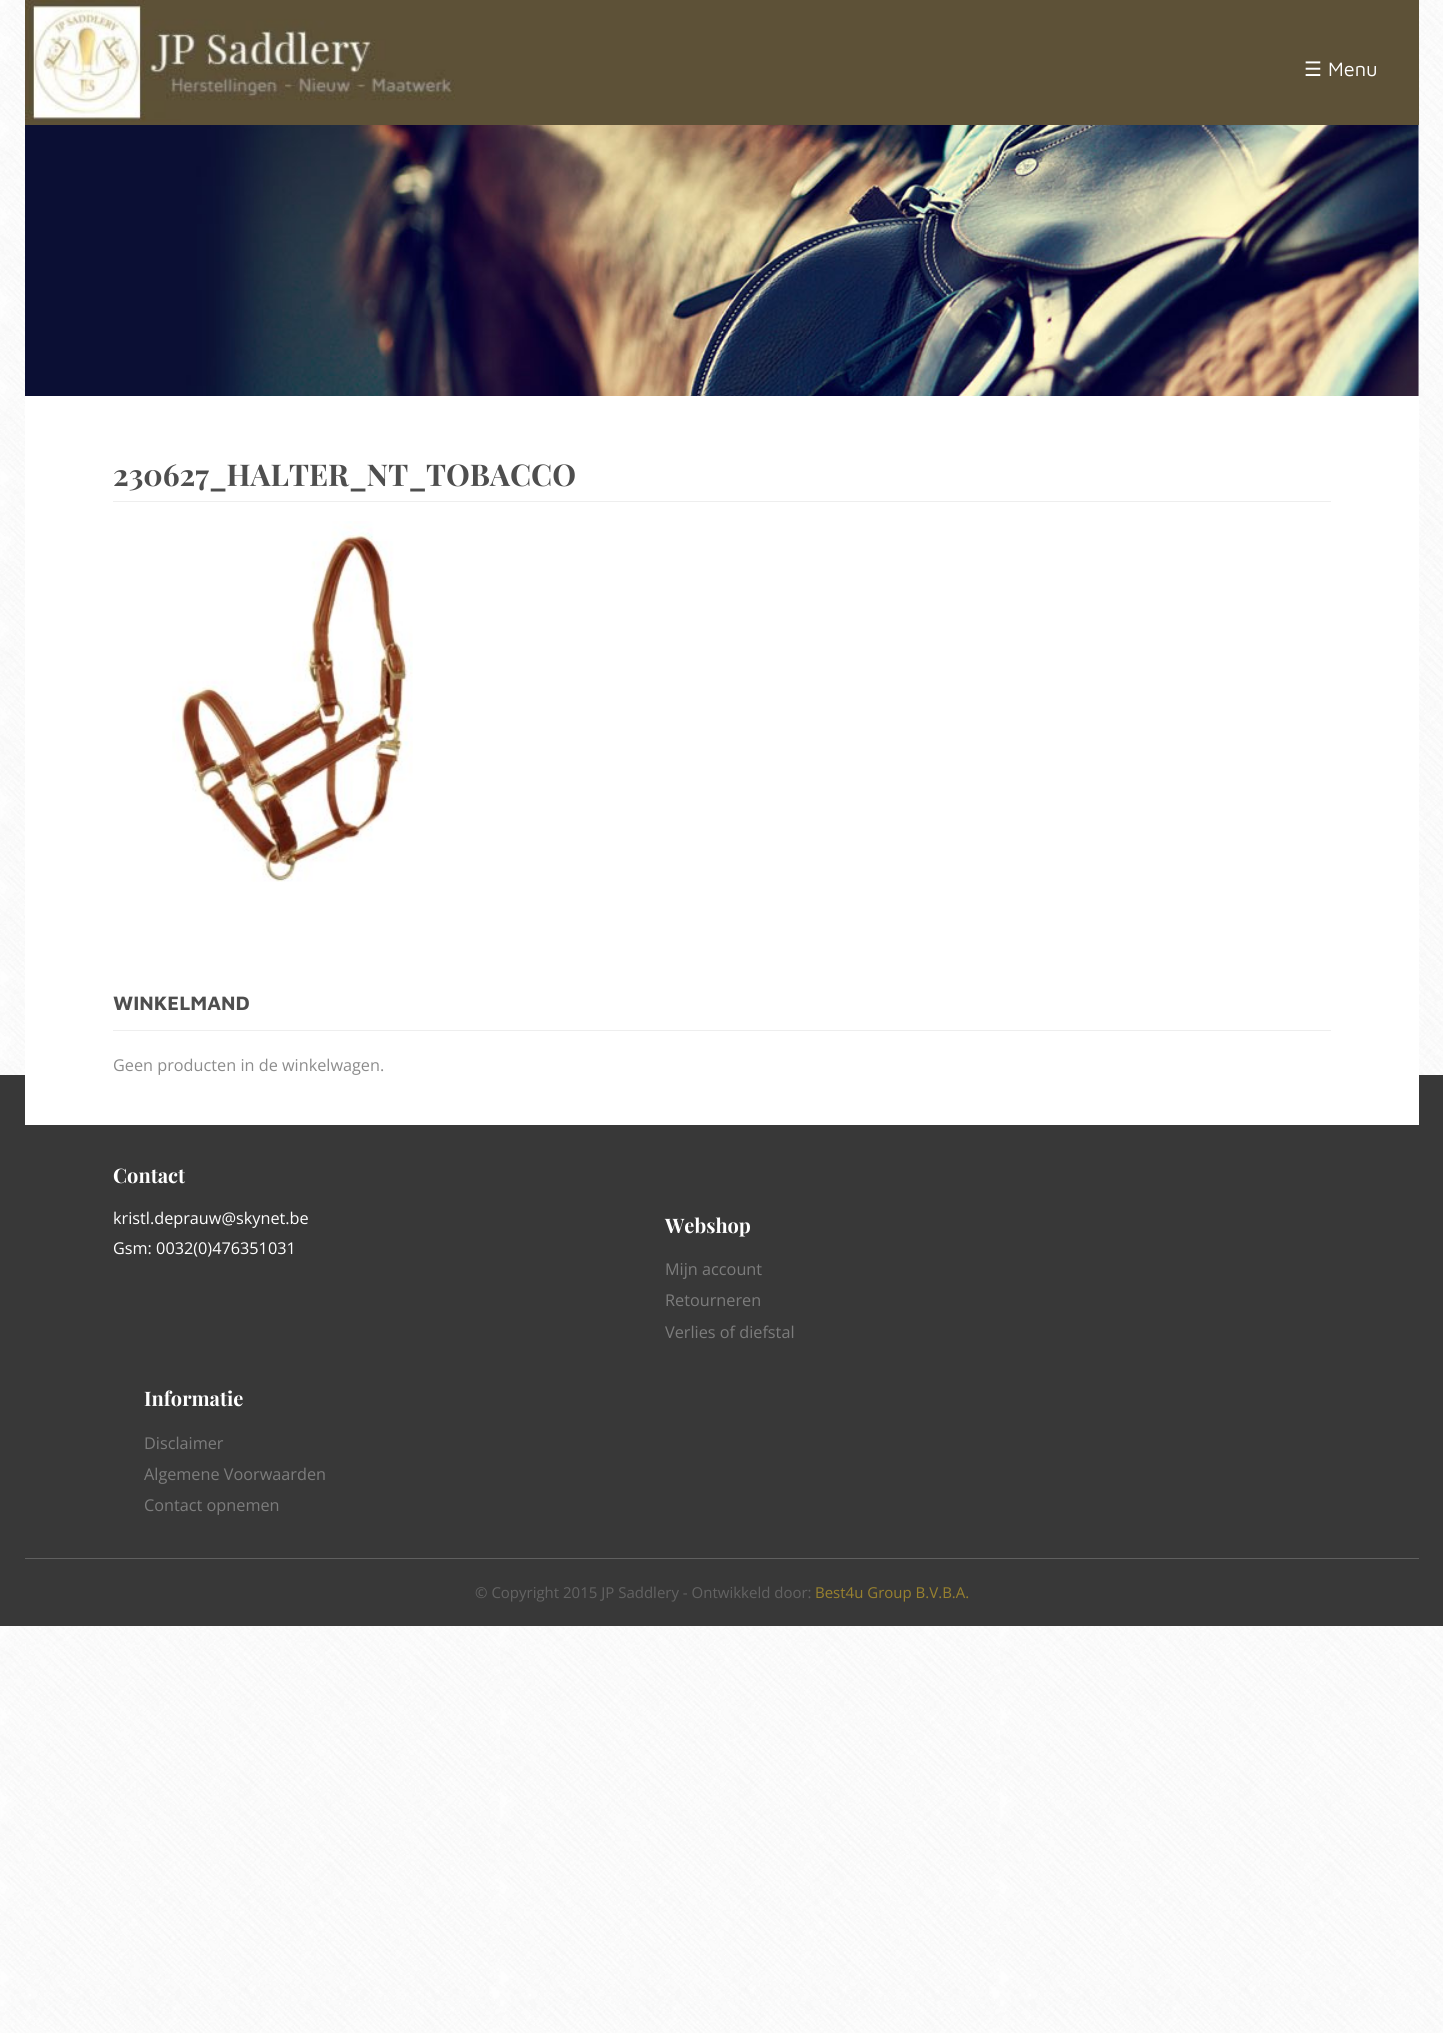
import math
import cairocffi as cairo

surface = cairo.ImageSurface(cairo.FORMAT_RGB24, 1443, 2033)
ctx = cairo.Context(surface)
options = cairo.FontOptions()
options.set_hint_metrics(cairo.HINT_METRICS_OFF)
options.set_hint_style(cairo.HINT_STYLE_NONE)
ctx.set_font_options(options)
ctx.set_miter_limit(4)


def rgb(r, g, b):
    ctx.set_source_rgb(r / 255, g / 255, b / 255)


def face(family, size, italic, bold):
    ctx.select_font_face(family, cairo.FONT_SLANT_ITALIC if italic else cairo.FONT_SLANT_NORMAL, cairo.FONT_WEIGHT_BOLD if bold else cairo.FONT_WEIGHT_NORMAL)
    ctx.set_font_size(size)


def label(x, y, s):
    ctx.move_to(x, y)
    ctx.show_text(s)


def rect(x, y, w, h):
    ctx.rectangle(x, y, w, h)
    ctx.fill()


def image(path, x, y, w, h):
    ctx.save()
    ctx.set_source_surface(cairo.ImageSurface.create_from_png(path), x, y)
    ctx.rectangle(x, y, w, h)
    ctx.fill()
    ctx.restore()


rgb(255, 255, 255)
ctx.paint()
image('image0.png', 0, 0, 1443, 2033)
rgb(255, 255, 255)
rect(1418, 125, 1, 271)
rgb(93, 81, 55)
rect(25, 0, 1394, 125)
image('image1.png', 25, 0, 430, 122)
face('DejaVu Sans', 20, 0, 0)
rgb(255, 255, 255)
label(1304, 76, '☰')
face('Maven Pro', 20, 0, 0)
label(1328, 76, 'Menu')
image('image2.png', 25, 125, 1394, 271)
rgb(56, 56, 56)
rect(0, 1075, 1443, 551)
rgb(255, 255, 255)
rect(25, 396, 1394, 729)
rgb(238, 238, 238)
rect(113, 501, 1218, 1)
face('Playfair Display', 30, 0, 1)
rgb(78, 78, 78)
label(113, 486, '230627_HALTER_NT_TOBACCO')
image('image3.png', 172, 521, 241, 361)
rgb(238, 238, 238)
rect(113, 1030, 1218, 1)
face('Maven Pro', 20, 0, 1)
rgb(78, 78, 78)
label(113, 1010, 'WINKELMAND')
face('Open Sans', 16.25, 0, 0)
rgb(140, 140, 140)
label(113, 1071, 'Geen producten in de winkelwagen.')
face('Playfair Display', 20, 0, 1)
rgb(255, 255, 255)
label(113, 1183, 'Contact')
face('Open Sans', 16.25, 0, 0)
label(113, 1224, 'kristl.deprauw@skynet.be')
label(113, 1254, 'Gsm: 0032(0)476351031')
face('Playfair Display', 20, 0, 1)
label(665, 1233, 'Webshop')
face('Open Sans', 16.25, 0, 0)
rgb(124, 124, 124)
label(665, 1275, 'Mijn account')
label(665, 1306, 'Retourneren')
label(665, 1338, 'Verlies of diefstal')
face('Playfair Display', 20, 0, 1)
rgb(255, 255, 255)
label(144, 1406, 'Informatie')
face('Open Sans', 16.25, 0, 0)
rgb(124, 124, 124)
label(144, 1449, 'Disclaimer')
label(144, 1480, 'Algemene Voorwaarden')
label(144, 1511, 'Contact opnemen')
rgb(96, 96, 96)
rect(25, 1558, 1394, 1)
face('Open Sans', 15, 0, 0)
rgb(98, 98, 98)
label(475, 1598, '© Copyright 2015 JP Saddlery - Ontwikkeld door:')
rgb(152, 129, 46)
label(815, 1598, 'Best4u Group B.V.B.A.')
surface.write_to_png('render.png')
